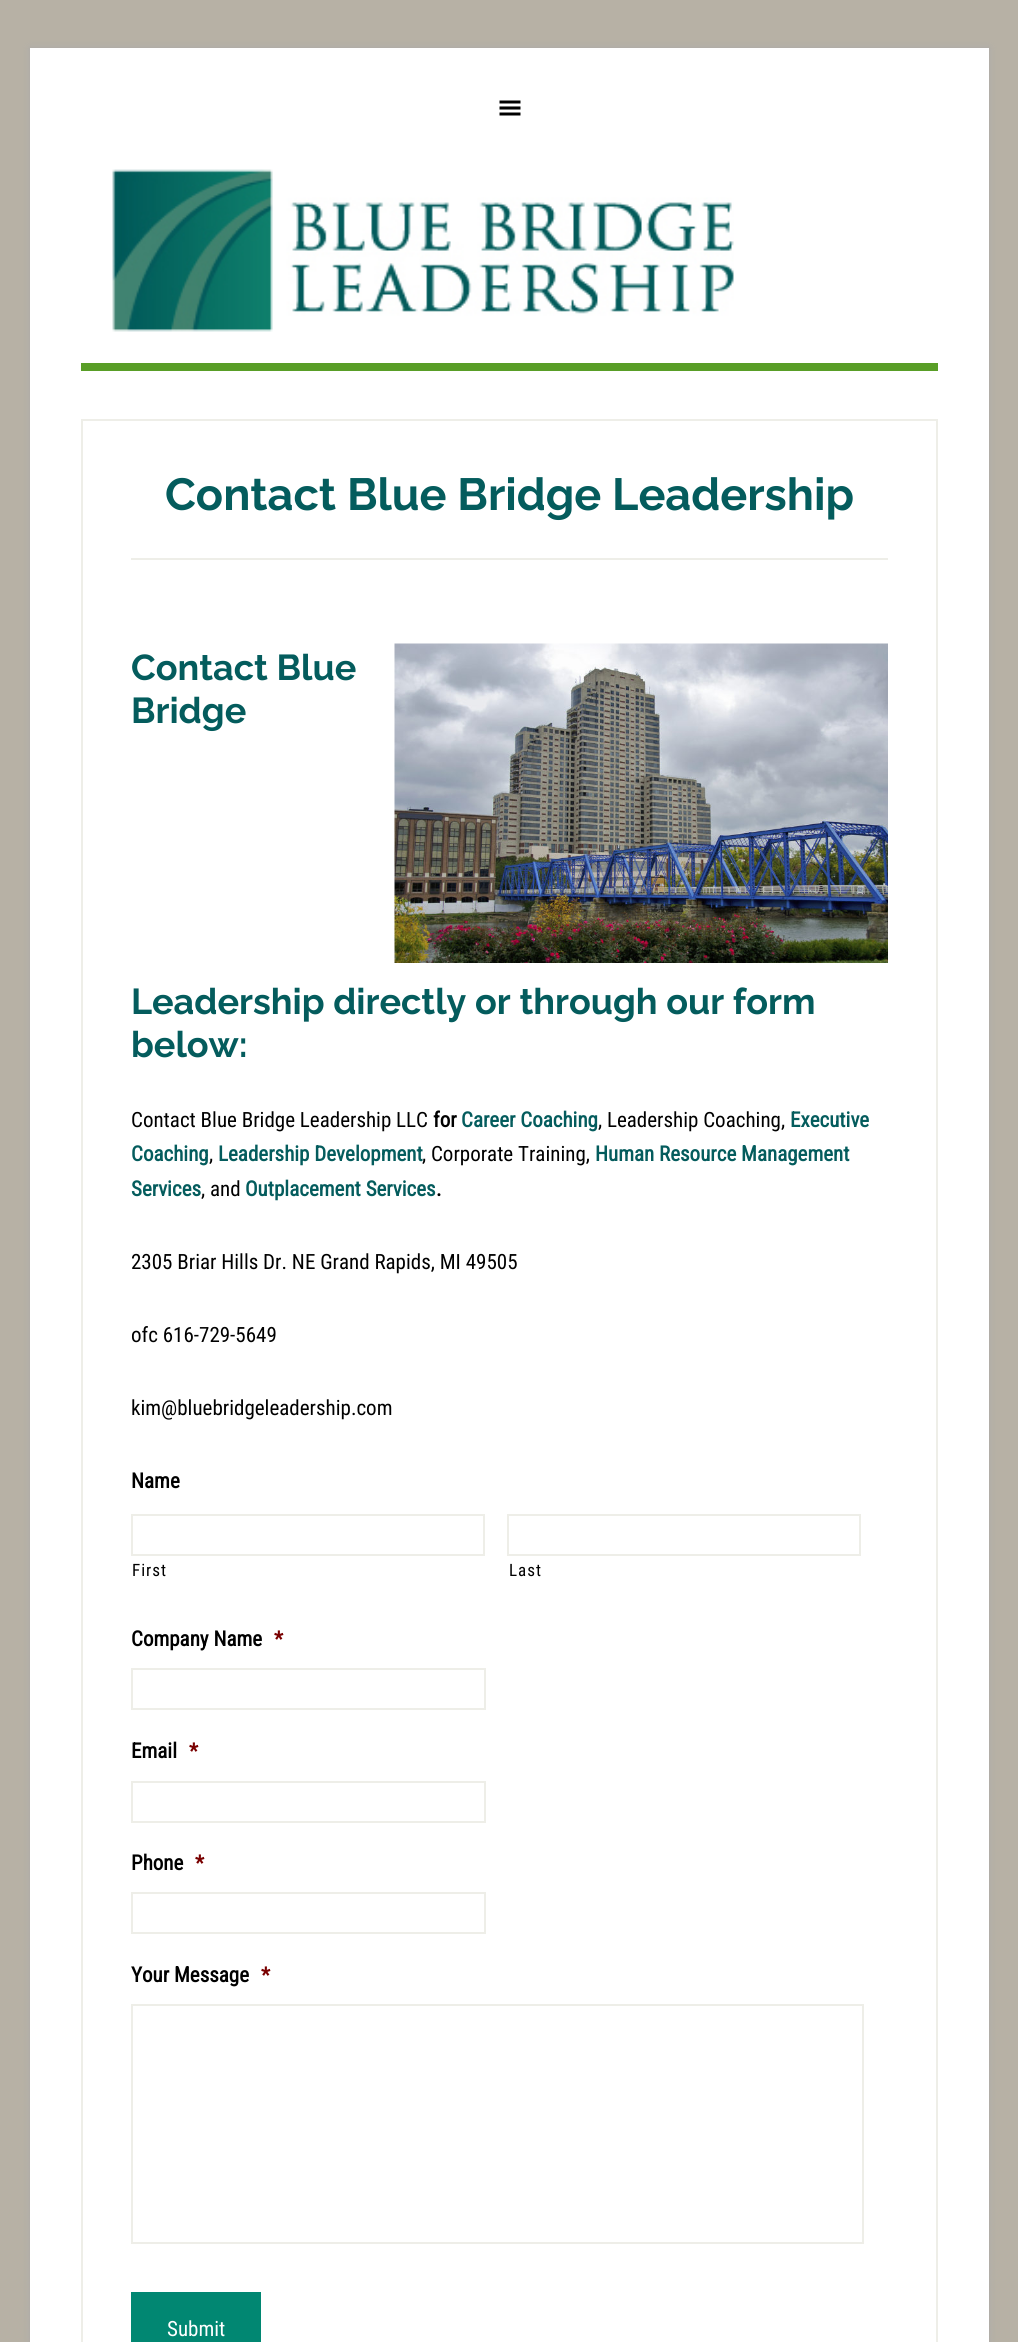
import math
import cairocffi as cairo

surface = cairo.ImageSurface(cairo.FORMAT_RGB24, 1018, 2342)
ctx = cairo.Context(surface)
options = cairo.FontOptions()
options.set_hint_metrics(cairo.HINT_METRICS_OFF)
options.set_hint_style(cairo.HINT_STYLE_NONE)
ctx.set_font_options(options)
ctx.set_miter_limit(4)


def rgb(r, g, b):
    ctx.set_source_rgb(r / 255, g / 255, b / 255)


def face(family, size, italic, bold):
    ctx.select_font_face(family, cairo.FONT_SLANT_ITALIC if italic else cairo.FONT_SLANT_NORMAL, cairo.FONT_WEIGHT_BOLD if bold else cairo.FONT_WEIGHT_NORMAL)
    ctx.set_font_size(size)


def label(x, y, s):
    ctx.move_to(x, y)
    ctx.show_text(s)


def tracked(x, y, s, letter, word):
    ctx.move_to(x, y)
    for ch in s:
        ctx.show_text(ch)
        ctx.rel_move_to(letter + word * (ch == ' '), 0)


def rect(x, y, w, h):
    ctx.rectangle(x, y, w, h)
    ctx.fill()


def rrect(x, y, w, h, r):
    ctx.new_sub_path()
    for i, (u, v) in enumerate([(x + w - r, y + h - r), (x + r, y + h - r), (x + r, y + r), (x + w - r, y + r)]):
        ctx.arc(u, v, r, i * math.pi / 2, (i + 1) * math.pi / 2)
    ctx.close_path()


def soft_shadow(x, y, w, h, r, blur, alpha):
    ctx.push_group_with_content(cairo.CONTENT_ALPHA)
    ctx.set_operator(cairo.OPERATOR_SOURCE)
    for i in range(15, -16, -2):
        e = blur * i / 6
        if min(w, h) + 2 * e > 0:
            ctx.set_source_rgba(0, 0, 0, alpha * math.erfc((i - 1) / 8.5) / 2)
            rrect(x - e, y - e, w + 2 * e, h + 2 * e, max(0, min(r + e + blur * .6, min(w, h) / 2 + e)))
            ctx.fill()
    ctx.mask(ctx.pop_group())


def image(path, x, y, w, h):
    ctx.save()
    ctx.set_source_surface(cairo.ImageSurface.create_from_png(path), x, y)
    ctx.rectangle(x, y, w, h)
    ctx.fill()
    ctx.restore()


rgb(183, 177, 165)
ctx.paint()
rgb(170, 170, 170)
soft_shadow(30, 48, 959, 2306, 0, 4, 1)
rgb(255, 255, 255)
rect(30, 48, 959, 2294)
image('image0.png', 499, 100, 22, 16)
image('image1.png', 112, 169, 622, 163)
rgb(89, 158, 39)
rect(81, 363, 857, 8)
ctx.rectangle(82, 420, 855, 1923)
rgb(238, 238, 232)
ctx.stroke()
rect(131, 558, 757, 2)
face('Raleway', 45, 0, 1)
rgb(4, 92, 93)
label(165, 510, 'Contact Blue Bridge Leadership')
image('image2.png', 394, 643, 494, 320)
face('Raleway', 36, 0, 1)
label(131, 680, 'Contact Blue')
label(131, 723, 'Bridge')
label(131, 1014, 'Leadership directly or through our form')
label(131, 1057, 'below:')
face('Roboto Condensed', 21, 0, 0)
rgb(0, 0, 0)
label(131, 1127, 'Contact Blue Bridge Leadership LLC')
face('Roboto Condensed', 21, 0, 1)
label(433, 1127, 'for')
rgb(4, 92, 93)
label(461, 1127, 'Career Coaching')
face('Roboto Condensed', 21, 0, 0)
rgb(0, 0, 0)
label(598, 1127, ', Leadership Coaching,')
face('Roboto Condensed', 21, 0, 1)
rgb(4, 92, 93)
label(790, 1127, 'Executive')
label(131, 1161, 'Coaching')
face('Roboto Condensed', 21, 0, 0)
rgb(0, 0, 0)
label(209, 1161, ',')
face('Roboto Condensed', 21, 0, 1)
rgb(4, 92, 93)
label(218, 1161, 'Leadership Development')
face('Roboto Condensed', 21, 0, 0)
rgb(0, 0, 0)
label(422, 1161, ', Corporate Training,')
face('Roboto Condensed', 21, 0, 1)
rgb(4, 92, 93)
label(595, 1161, 'Human Resource Management')
label(131, 1196, 'Services')
face('Roboto Condensed', 21, 0, 0)
rgb(0, 0, 0)
label(201, 1196, ', and')
face('Roboto Condensed', 21, 0, 1)
rgb(4, 92, 93)
label(245, 1196, 'Outplacement Services')
rgb(0, 0, 0)
label(436, 1196, '.')
face('Roboto Condensed', 21, 0, 0)
label(131, 1269, '2305 Briar Hills Dr. NE Grand Rapids, MI 49505')
label(131, 1342, 'ofc 616-729-5649')
label(131, 1415, 'kim@bluebridgeleadership.com')
face('Roboto Condensed', 21, 0, 1)
label(131, 1488, 'Name')
ctx.rectangle(132, 1515, 352, 40)
rgb(238, 238, 232)
ctx.stroke()
face('Roboto Condensed', 17, 0, 0)
rgb(0, 0, 0)
tracked(132, 1576, 'First', 1, 0)
ctx.rectangle(508, 1515, 352, 40)
rgb(238, 238, 232)
ctx.stroke()
rgb(0, 0, 0)
tracked(509, 1576, 'Last', 1, 0)
face('Roboto Condensed', 21, 0, 1)
label(131, 1646, 'Company Name')
rgb(121, 0, 0)
label(274, 1646, '*')
ctx.rectangle(132, 1669, 353, 40)
rgb(238, 238, 232)
ctx.stroke()
rgb(0, 0, 0)
label(131, 1758, 'Email')
rgb(121, 0, 0)
label(189, 1758, '*')
ctx.rectangle(132, 1782, 353, 40)
rgb(238, 238, 232)
ctx.stroke()
rgb(0, 0, 0)
label(131, 1870, 'Phone')
rgb(121, 0, 0)
label(195, 1870, '*')
ctx.rectangle(132, 1893, 353, 40)
rgb(238, 238, 232)
ctx.stroke()
rgb(0, 0, 0)
label(131, 1982, 'Your Message')
rgb(121, 0, 0)
label(261, 1982, '*')
ctx.rectangle(132, 2005, 731, 238)
rgb(238, 238, 232)
ctx.stroke()
rgb(1, 135, 114)
rect(131, 2292, 130, 50)
face('Roboto Condensed', 21, 0, 0)
rgb(255, 255, 255)
label(167, 2336, 'Submit')
surface.write_to_png('render.png')
